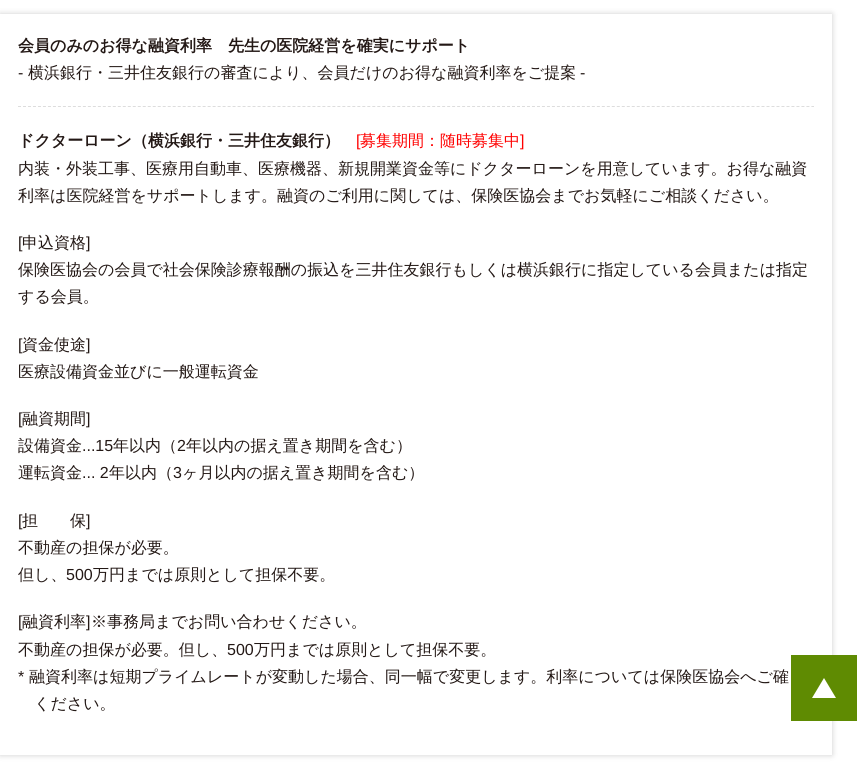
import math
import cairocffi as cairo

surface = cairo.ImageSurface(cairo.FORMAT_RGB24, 857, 778)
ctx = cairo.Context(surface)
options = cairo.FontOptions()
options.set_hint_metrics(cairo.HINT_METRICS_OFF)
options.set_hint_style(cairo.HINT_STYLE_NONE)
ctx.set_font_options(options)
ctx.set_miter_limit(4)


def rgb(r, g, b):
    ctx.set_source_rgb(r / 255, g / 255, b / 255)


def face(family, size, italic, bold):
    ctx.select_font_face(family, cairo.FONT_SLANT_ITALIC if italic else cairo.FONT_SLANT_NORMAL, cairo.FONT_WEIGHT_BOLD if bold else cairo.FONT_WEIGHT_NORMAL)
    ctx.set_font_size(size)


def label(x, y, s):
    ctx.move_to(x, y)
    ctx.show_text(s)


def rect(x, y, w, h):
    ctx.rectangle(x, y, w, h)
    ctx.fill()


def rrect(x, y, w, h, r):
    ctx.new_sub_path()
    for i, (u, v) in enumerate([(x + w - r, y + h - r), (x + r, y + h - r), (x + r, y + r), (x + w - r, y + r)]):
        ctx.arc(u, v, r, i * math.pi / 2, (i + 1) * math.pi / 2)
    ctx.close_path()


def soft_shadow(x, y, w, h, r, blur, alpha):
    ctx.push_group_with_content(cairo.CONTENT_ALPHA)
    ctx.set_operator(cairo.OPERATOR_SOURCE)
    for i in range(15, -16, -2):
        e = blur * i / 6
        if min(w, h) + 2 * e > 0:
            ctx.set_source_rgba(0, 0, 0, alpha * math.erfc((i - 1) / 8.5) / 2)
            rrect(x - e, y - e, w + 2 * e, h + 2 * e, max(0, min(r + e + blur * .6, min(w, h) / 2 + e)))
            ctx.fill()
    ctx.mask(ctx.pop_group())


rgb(255, 255, 255)
ctx.paint()
ctx.save()
ctx.set_fill_rule(cairo.FILL_RULE_EVEN_ODD)
ctx.new_path()
ctx.move_to(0, 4)
ctx.line_to(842, 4)
ctx.line_to(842, 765)
ctx.line_to(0, 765)
ctx.close_path()
ctx.move_to(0, 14)
ctx.line_to(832, 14)
ctx.line_to(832, 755)
ctx.line_to(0, 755)
ctx.close_path()
ctx.clip()
rgb(0, 0, 0)
soft_shadow(0, 14, 832, 741, 0, 3, 0.2)
ctx.restore()
face('WenQuanYi Zen Hei', 16, 0, 1)
rgb(35, 24, 21)
label(18, 51, '会員のみのお得な融資利率　先生の医院経営を確実にサポート')
face('Liberation Sans', 16, 0, 0)
label(18, 78, '-')
face('WenQuanYi Zen Hei Medium', 16, 0, 0)
label(28, 78, '横浜銀行・三井住友銀行の審査により、会員だけのお得な融資利率をご提案')
face('Liberation Sans', 16, 0, 0)
label(580, 78, '-')
ctx.new_path()
ctx.move_to(18, 106.5)
ctx.line_to(814, 106.5)
rgb(221, 221, 221)
ctx.set_line_width(1)
ctx.set_dash([3, 1.99])
ctx.stroke()
face('WenQuanYi Zen Hei', 16, 0, 1)
rgb(35, 24, 21)
label(18, 146, 'ドクターローン（横浜銀行・三井住友銀行）')
face('Liberation Sans', 16, 0, 0)
rgb(255, 0, 0)
label(356, 146, '[')
face('WenQuanYi Zen Hei Medium', 16, 0, 0)
label(360, 146, '募集期間：随時募集中')
face('Liberation Sans', 16, 0, 0)
label(520, 146, ']')
face('WenQuanYi Zen Hei Medium', 16, 0, 0)
rgb(35, 24, 21)
label(18, 174, '内装・外装工事、医療用自動車、医療機器、新規開業資金等にドクターローンを用意しています。お得な融資')
label(18, 201, '利率は医院経営をサポートします。融資のご利用に関しては、保険医協会までお気軽にご相談ください。')
face('Liberation Sans', 16, 0, 0)
label(18, 248, '[')
face('WenQuanYi Zen Hei Medium', 16, 0, 0)
label(22, 248, '申込資格')
face('Liberation Sans', 16, 0, 0)
label(86, 248, ']')
face('WenQuanYi Zen Hei Medium', 16, 0, 0)
label(18, 275, '保険医協会の会員で社会保険診療報酬の振込を三井住友銀行もしくは横浜銀行に指定している会員または指定')
label(18, 302, 'する会員。')
face('Liberation Sans', 16, 0, 0)
label(18, 350, '[')
face('WenQuanYi Zen Hei Medium', 16, 0, 0)
label(22, 350, '資金使途')
face('Liberation Sans', 16, 0, 0)
label(86, 350, ']')
face('WenQuanYi Zen Hei Medium', 16, 0, 0)
label(18, 377, '医療設備資金並びに一般運転資金')
face('Liberation Sans', 16, 0, 0)
label(18, 424, '[')
face('WenQuanYi Zen Hei Medium', 16, 0, 0)
label(22, 424, '融資期間')
face('Liberation Sans', 16, 0, 0)
label(86, 424, ']')
face('WenQuanYi Zen Hei Medium', 16, 0, 0)
label(18, 451, '設備資金')
face('Liberation Sans', 16, 0, 0)
label(82, 451, '...15')
face('WenQuanYi Zen Hei Medium', 16, 0, 0)
label(113, 451, '年以内（')
face('Liberation Sans', 16, 0, 0)
label(177, 451, '2')
face('WenQuanYi Zen Hei Medium', 16, 0, 0)
label(186, 451, '年以内の据え置き期間を含む）')
label(18, 478, '運転資金')
face('Liberation Sans', 16, 0, 0)
label(82, 478, '... 2')
face('WenQuanYi Zen Hei Medium', 16, 0, 0)
label(109, 478, '年以内（')
face('Liberation Sans', 16, 0, 0)
label(173, 478, '3')
face('WenQuanYi Zen Hei Medium', 16, 0, 0)
label(182, 478, 'ヶ月以内の据え置き期間を含む）')
face('Liberation Sans', 16, 0, 0)
label(18, 526, '[')
face('WenQuanYi Zen Hei Medium', 16, 0, 0)
label(22, 526, '担　　保')
face('Liberation Sans', 16, 0, 0)
label(86, 526, ']')
face('WenQuanYi Zen Hei Medium', 16, 0, 0)
label(18, 553, '不動産の担保が必要。')
label(18, 580, '但し、')
face('Liberation Sans', 16, 0, 0)
label(66, 580, '500')
face('WenQuanYi Zen Hei Medium', 16, 0, 0)
label(93, 580, '万円までは原則として担保不要。')
face('Liberation Sans', 16, 0, 0)
label(18, 627, '[')
face('WenQuanYi Zen Hei Medium', 16, 0, 0)
label(22, 627, '融資利率')
face('Liberation Sans', 16, 0, 0)
label(86, 627, ']')
face('WenQuanYi Zen Hei Medium', 16, 0, 0)
label(91, 627, '※事務局までお問い合わせください。')
label(18, 655, '不動産の担保が必要。但し、')
face('Liberation Sans', 16, 0, 0)
label(227, 655, '500')
face('WenQuanYi Zen Hei Medium', 16, 0, 0)
label(254, 655, '万円までは原則として担保不要。')
face('Liberation Sans', 16, 0, 0)
label(18, 682, '*')
face('WenQuanYi Zen Hei Medium', 16, 0, 0)
label(29, 682, '融資利率は短期プライムレートが変動した場合、同一幅で変更します。利率については保険医協会へご確')
label(34, 709, 'ください。')
rgb(95, 139, 2)
rect(791, 655, 66, 66)
rgb(255, 255, 255)
ctx.new_path()
ctx.move_to(836, 698)
ctx.line_to(812, 698)
ctx.line_to(824, 678)
ctx.close_path()
ctx.fill()
surface.write_to_png('render.png')
